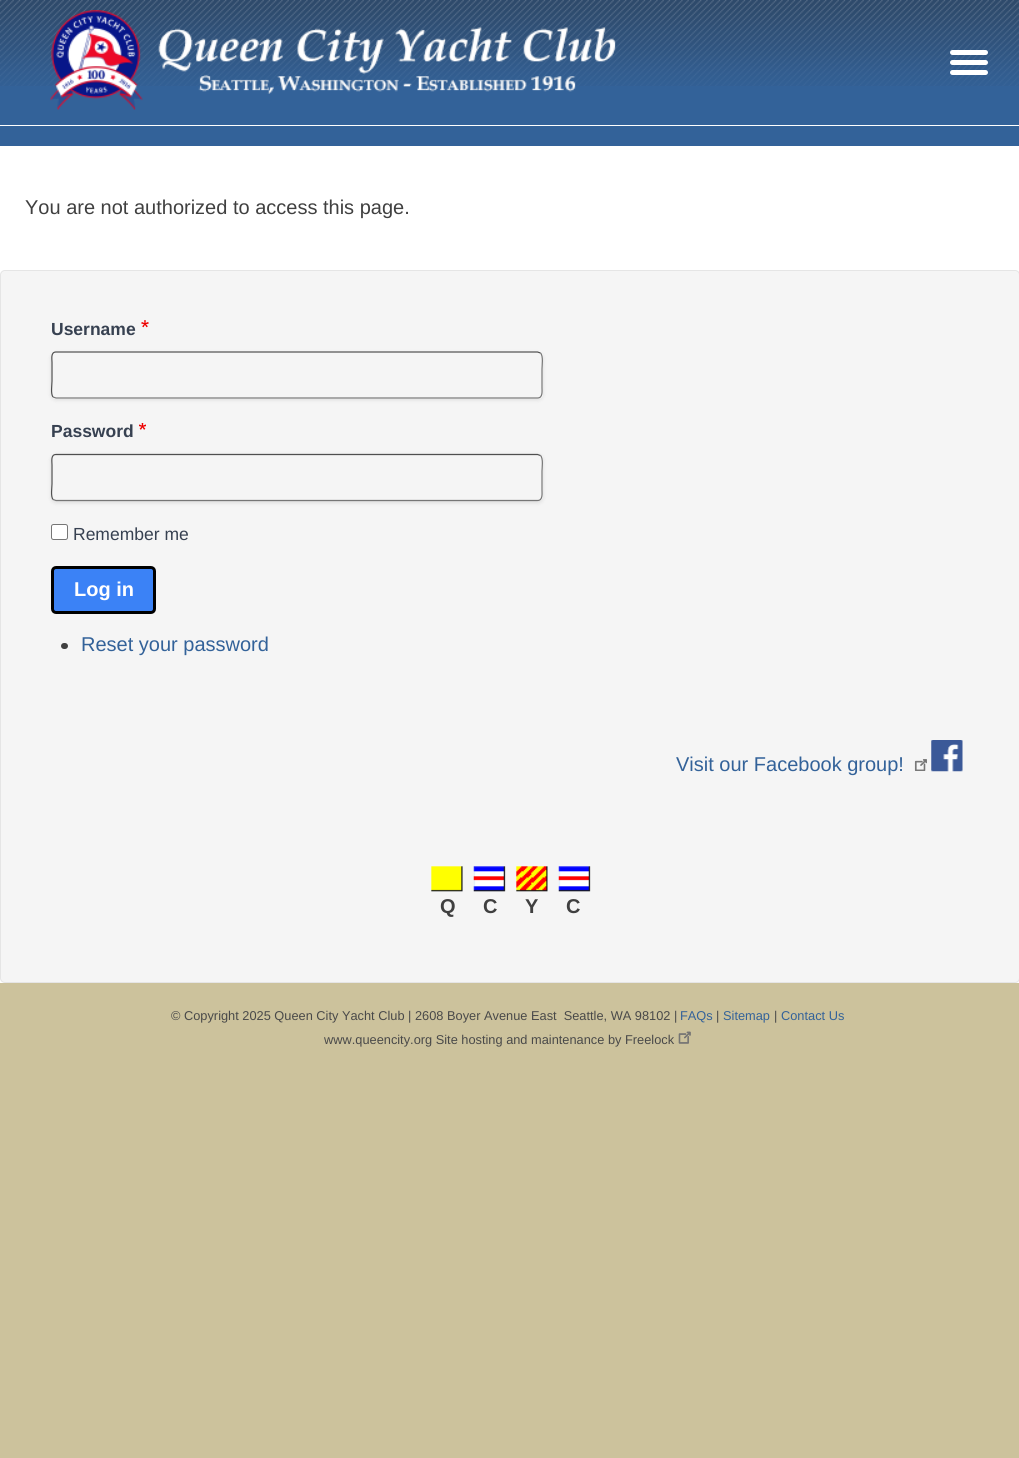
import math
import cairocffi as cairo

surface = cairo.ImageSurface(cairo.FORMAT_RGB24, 1019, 1458)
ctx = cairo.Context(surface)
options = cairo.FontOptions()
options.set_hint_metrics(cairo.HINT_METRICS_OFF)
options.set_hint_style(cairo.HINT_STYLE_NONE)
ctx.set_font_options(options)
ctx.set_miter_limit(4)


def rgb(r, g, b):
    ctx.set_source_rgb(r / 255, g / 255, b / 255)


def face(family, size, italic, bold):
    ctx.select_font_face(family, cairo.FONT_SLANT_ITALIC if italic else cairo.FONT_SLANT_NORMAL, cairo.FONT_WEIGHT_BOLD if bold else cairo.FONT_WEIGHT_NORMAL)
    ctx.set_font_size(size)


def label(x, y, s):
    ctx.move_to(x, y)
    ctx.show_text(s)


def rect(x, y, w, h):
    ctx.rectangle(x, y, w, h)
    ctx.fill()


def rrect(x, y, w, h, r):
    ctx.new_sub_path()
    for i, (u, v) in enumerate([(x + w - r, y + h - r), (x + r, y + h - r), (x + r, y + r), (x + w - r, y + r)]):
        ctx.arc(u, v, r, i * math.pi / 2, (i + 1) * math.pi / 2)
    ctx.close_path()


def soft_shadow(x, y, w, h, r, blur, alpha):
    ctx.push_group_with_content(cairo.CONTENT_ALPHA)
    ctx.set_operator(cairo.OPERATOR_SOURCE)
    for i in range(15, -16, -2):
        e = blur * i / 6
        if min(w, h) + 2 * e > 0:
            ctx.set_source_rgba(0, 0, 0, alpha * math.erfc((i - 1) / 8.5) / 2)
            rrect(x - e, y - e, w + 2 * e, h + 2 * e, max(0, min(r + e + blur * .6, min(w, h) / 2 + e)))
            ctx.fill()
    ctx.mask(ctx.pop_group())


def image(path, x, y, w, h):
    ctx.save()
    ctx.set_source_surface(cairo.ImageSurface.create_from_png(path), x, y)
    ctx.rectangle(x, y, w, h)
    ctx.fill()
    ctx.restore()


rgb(204, 194, 156)
ctx.paint()
rgb(255, 255, 255)
rect(0, 125, 1019, 858)
rgb(51, 98, 153)
rect(0, 86, 1019, 39)
image('image0.png', 0, 0, 1019, 86)
image('image1.png', 50, 10, 566, 100)
rgb(255, 255, 255)
rrect(950, 50, 38, 5, 2.5)
ctx.fill()
rrect(950, 60, 38, 5, 2.5)
ctx.fill()
rrect(950, 70, 38, 5, 2.5)
ctx.fill()
rgb(51, 98, 153)
rect(0, 126, 1019, 20)
face('Liberation Sans', 20, 0, 0)
rgb(64, 64, 64)
label(25, 214, 'You are not authorized to access this page.')
rgb(245, 245, 245)
rrect(0.5, 270.5, 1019, 712, 4.5)
ctx.fill_preserve()
rgb(229, 229, 229)
ctx.set_line_width(1)
ctx.stroke()
face('Liberation Sans', 17.5, 0, 1)
rgb(55, 65, 81)
label(51, 335, 'Username')
image('image2.png', 141, 320, 8, 8)
ctx.save()
ctx.set_fill_rule(cairo.FILL_RULE_EVEN_ODD)
ctx.new_path()
ctx.move_to(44, 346)
ctx.line_to(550, 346)
ctx.line_to(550, 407)
ctx.line_to(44, 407)
ctx.close_path()
ctx.move_to(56, 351)
ctx.line_to(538, 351)
ctx.curve_to(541, 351, 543, 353, 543, 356)
ctx.line_to(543, 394)
ctx.curve_to(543, 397, 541, 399, 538, 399)
ctx.line_to(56, 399)
ctx.curve_to(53, 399, 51, 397, 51, 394)
ctx.line_to(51, 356)
ctx.curve_to(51, 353, 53, 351, 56, 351)
ctx.close_path()
ctx.clip()
rgb(0, 0, 0)
soft_shadow(51, 353, 492, 47, 5, 2, 0.1)
ctx.restore()
ctx.new_path()
ctx.move_to(540.5, 353)
ctx.curve_to(543.5, 356, 542, 365.5, 542, 369)
ctx.line_to(542, 387.5)
ctx.curve_to(542, 391, 543, 398, 537.5, 398)
ctx.line_to(56, 398)
ctx.line_to(53, 397)
rgb(118, 118, 118)
ctx.set_line_width(1.2)
ctx.stroke()
ctx.new_path()
ctx.move_to(53, 397)
ctx.curve_to(50.5, 394, 52, 384.5, 52, 381)
ctx.line_to(52, 362.5)
ctx.curve_to(52, 359, 50.5, 352, 56, 352)
ctx.line_to(537.5, 352)
ctx.line_to(540.5, 353)
rgb(79, 79, 79)
ctx.stroke()
rgb(55, 65, 81)
label(51, 437, 'Password')
image('image3.png', 139, 423, 7, 7)
ctx.save()
ctx.set_fill_rule(cairo.FILL_RULE_EVEN_ODD)
ctx.new_path()
ctx.move_to(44, 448)
ctx.line_to(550, 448)
ctx.line_to(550, 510)
ctx.line_to(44, 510)
ctx.close_path()
ctx.move_to(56, 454)
ctx.line_to(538, 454)
ctx.curve_to(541, 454, 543, 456, 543, 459)
ctx.line_to(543, 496)
ctx.curve_to(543, 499, 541, 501, 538, 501)
ctx.line_to(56, 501)
ctx.curve_to(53, 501, 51, 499, 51, 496)
ctx.line_to(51, 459)
ctx.curve_to(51, 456, 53, 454, 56, 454)
ctx.close_path()
ctx.clip()
rgb(0, 0, 0)
soft_shadow(51, 455, 492, 48, 5, 2, 0.1)
ctx.restore()
ctx.new_path()
ctx.move_to(540.5, 455.5)
ctx.curve_to(543.5, 458.5, 542, 468, 542, 471)
ctx.line_to(542, 490)
ctx.curve_to(542, 493.5, 543, 500.5, 537.5, 500.5)
ctx.line_to(56, 500.5)
ctx.line_to(53, 499.5)
rgb(118, 118, 118)
ctx.stroke()
ctx.new_path()
ctx.move_to(53, 499.5)
ctx.curve_to(50.5, 496.5, 52, 487, 52, 484)
ctx.line_to(52, 465)
ctx.curve_to(52, 461.5, 50.5, 454.5, 56, 454.5)
ctx.line_to(537.5, 454.5)
ctx.line_to(540.5, 455.5)
rgb(79, 79, 79)
ctx.stroke()
rgb(255, 255, 255)
rrect(51.5, 524.5, 16, 15, 2)
ctx.fill_preserve()
rgb(118, 118, 118)
ctx.set_line_width(1)
ctx.stroke()
face('Liberation Sans', 17.5, 0, 0)
rgb(55, 65, 81)
label(73, 540, 'Remember me')
rgb(59, 130, 246)
rrect(52.5, 567.5, 102, 45, 3.5)
ctx.fill_preserve()
rgb(0, 0, 0)
ctx.set_line_width(3)
ctx.stroke()
face('Liberation Sans', 20, 0, 1)
rgb(255, 255, 255)
label(74, 596, 'Log in')
rgb(64, 64, 64)
rrect(61, 643, 7, 6, 3)
ctx.fill()
face('Liberation Sans', 20, 0, 0)
rgb(51, 98, 153)
label(81, 651, 'Reset your password')
label(676, 771, 'Visit our Facebook group!')
image('image4.png', 914, 759, 13, 12)
image('image5.png', 931, 740, 32, 32)
image('image6.png', 431, 866, 160, 26)
face('Liberation Sans', 20, 0, 1)
rgb(64, 64, 64)
label(440, 913, 'Q')
label(483, 913, 'C')
label(525, 913, 'Y')
label(566, 913, 'C')
face('Liberation Sans', 12.8, 0, 0)
rgb(73, 73, 73)
label(171, 1020, '© Copyright 2025 Queen City Yacht Club | 2608 Boyer Avenue East  Seattle, WA 98102 |')
rgb(51, 98, 153)
label(680, 1020, 'FAQs')
rgb(73, 73, 73)
label(716, 1020, '|')
rgb(51, 98, 153)
label(723, 1020, 'Sitemap')
rgb(73, 73, 73)
label(774, 1020, '|')
rgb(51, 98, 153)
label(781, 1020, 'Contact Us')
rgb(73, 73, 73)
label(324, 1044, 'www.queencity.org Site hosting and maintenance by Freelock')
image('image7.png', 678, 1031, 13, 13)
surface.write_to_png('render.png')
